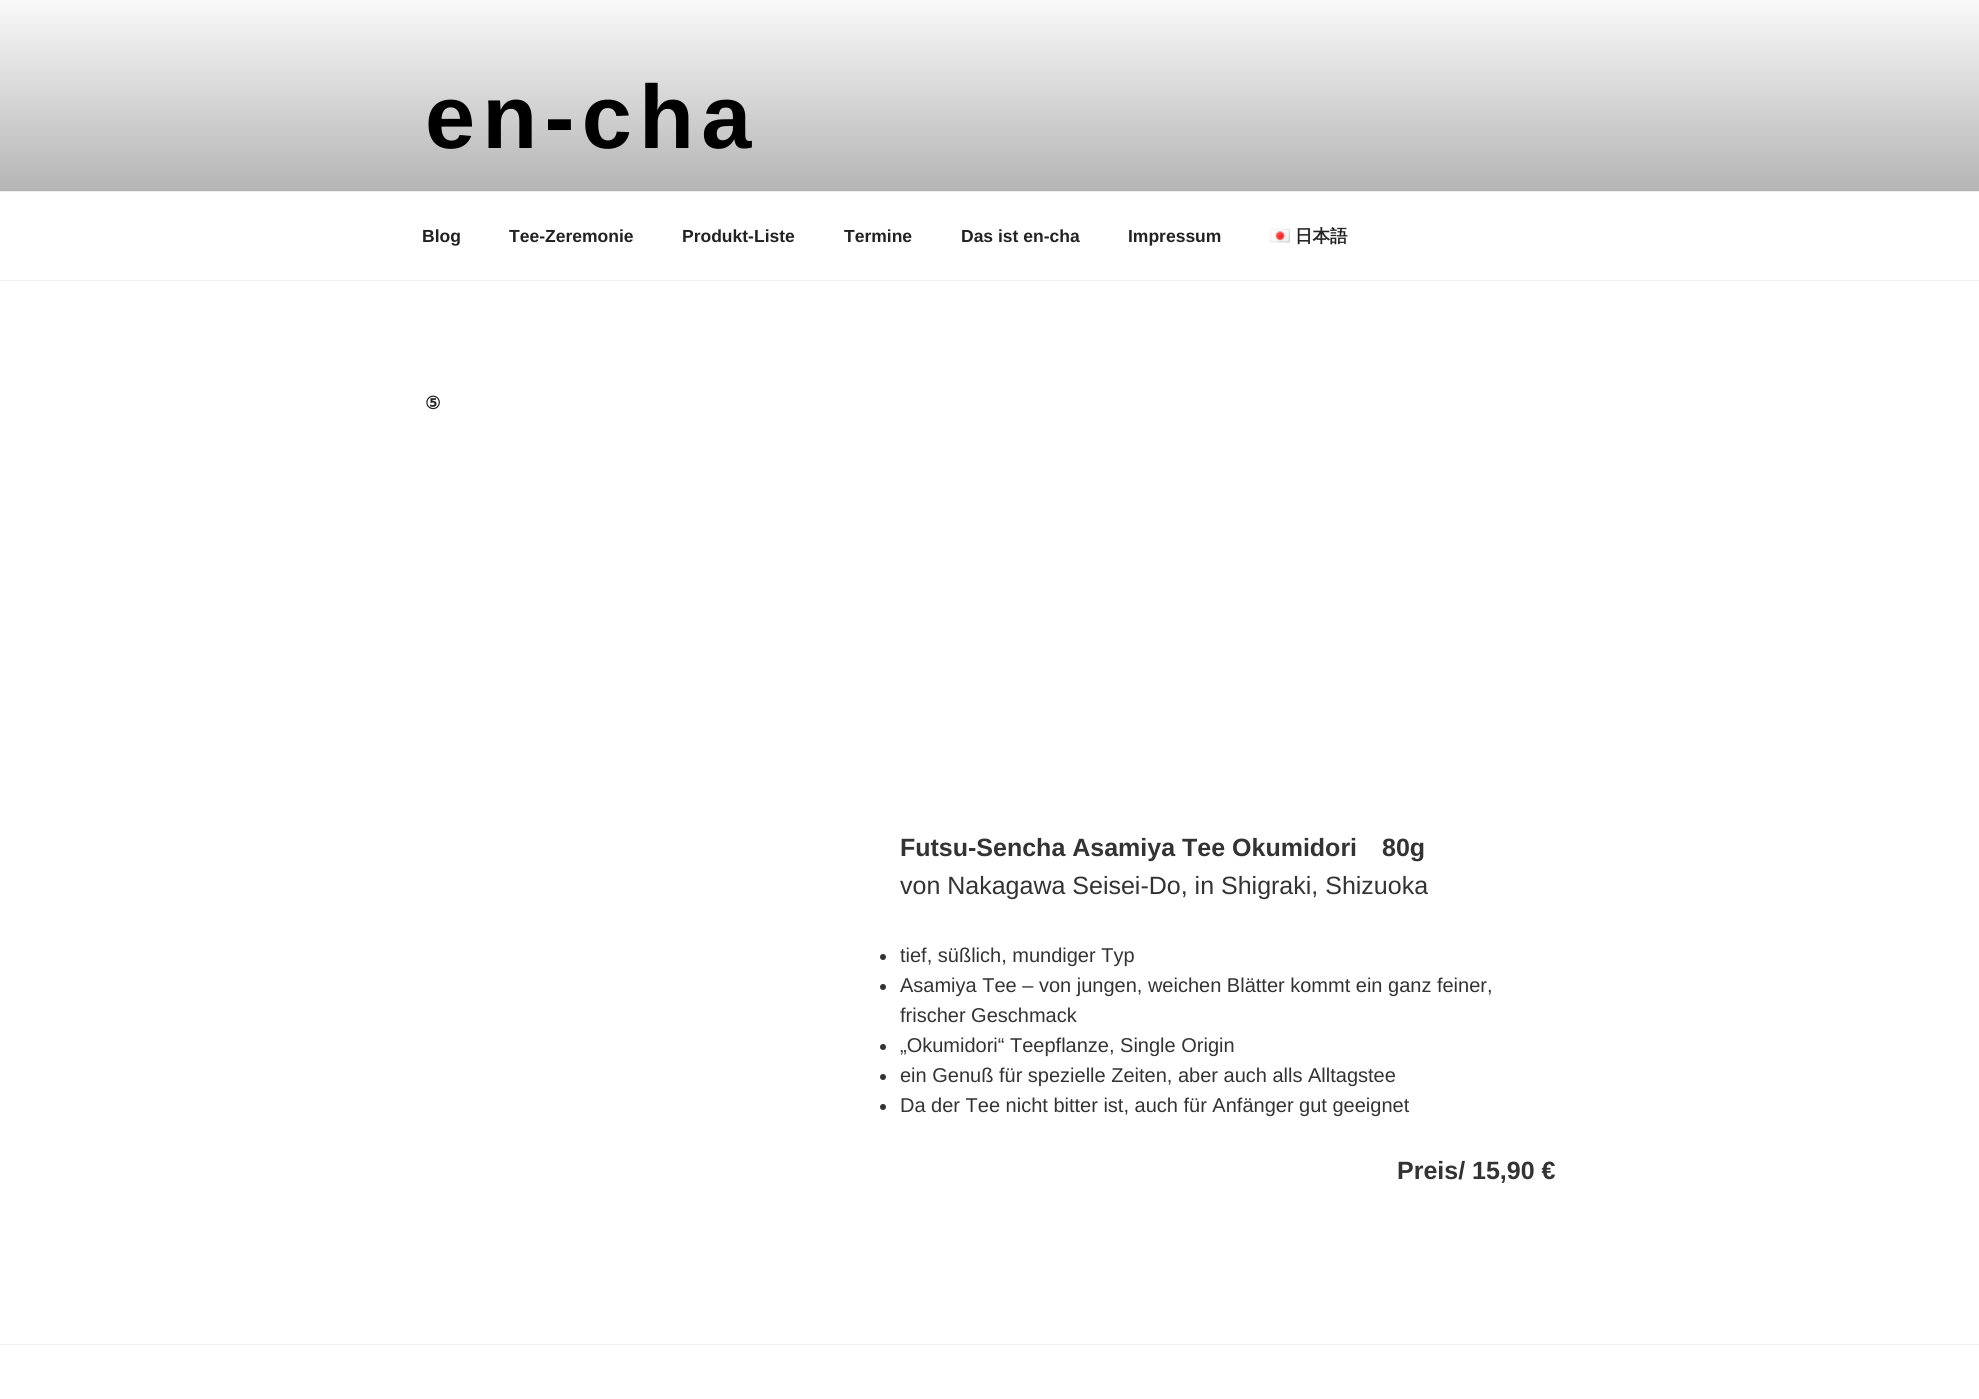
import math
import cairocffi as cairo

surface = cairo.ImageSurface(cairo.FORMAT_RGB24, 1979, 1399)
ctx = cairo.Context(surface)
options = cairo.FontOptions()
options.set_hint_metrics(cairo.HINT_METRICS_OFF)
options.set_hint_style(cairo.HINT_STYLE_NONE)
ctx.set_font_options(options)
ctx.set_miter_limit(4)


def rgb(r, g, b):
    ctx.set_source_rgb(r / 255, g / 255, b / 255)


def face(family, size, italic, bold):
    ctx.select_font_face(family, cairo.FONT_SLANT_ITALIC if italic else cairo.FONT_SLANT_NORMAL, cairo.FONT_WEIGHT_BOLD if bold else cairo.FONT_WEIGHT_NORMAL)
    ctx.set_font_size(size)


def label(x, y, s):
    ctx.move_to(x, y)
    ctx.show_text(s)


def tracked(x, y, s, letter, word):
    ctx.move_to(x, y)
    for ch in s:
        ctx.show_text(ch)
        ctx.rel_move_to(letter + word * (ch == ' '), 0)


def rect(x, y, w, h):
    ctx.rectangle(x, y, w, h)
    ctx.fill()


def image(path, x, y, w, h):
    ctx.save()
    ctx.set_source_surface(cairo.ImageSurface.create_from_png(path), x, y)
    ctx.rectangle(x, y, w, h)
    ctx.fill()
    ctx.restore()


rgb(255, 255, 255)
ctx.paint()
gradient = cairo.LinearGradient(990, 0, 990, 281)
gradient.add_color_stop_rgba(0, 0.976, 0.976, 0.976, 1)
gradient.add_color_stop_rgba(0.75, 0.682, 0.682, 0.682, 1)
gradient.add_color_stop_rgba(1, 0.682, 0.682, 0.682, 1)
ctx.set_source(gradient)
rect(0, 0, 1979, 191)
face('Liberation Sans', 90, 0, 1)
rgb(0, 0, 0)
tracked(425, 148, 'en-cha', 7.25, 0)
rgb(238, 238, 238)
rect(0, 191, 1979, 1)
rect(0, 280, 1979, 1)
face('Liberation Sans', 17.5, 0, 1)
rgb(34, 34, 34)
label(422, 242, 'Blog')
label(509, 242, 'Tee-Zeremonie')
label(682, 242, 'Produkt-Liste')
label(844, 242, 'Termine')
label(961, 242, 'Das ist en-cha')
label(1128, 242, 'Impressum')
image('image0.png', 1270, 228, 20, 15)
face('WenQuanYi Zen Hei', 17.5, 0, 1)
label(1295, 242, '日本語')
face('DejaVu Sans', 17.5, 0, 1)
tracked(425, 409, '⑤', 2, 0)
face('Liberation Sans', 25, 0, 1)
rgb(51, 51, 51)
label(900, 856, 'Futsu-Sencha Asamiya Tee Okumidori')
label(1382, 856, '80g')
face('Liberation Sans', 25, 0, 0)
label(900, 894, 'von Nakagawa Seisei-Do, in Shigraki, Shizuoka')
ctx.new_path()
ctx.arc(883, 957, 3, 0, 2 * math.pi)
ctx.fill()
face('Liberation Sans', 20, 0, 0)
label(900, 962, 'tief, süßlich, mundiger Typ')
ctx.new_path()
ctx.arc(883, 987, 3, 0, 2 * math.pi)
ctx.fill()
label(900, 992, 'Asamiya Tee – von jungen, weichen Blätter kommt ein ganz feiner,')
label(900, 1022, 'frischer Geschmack')
ctx.new_path()
ctx.arc(883, 1047, 3, 0, 2 * math.pi)
ctx.fill()
label(900, 1052, '„Okumidori“ Teepflanze, Single Origin')
ctx.new_path()
ctx.arc(883, 1077, 3, 0, 2 * math.pi)
ctx.fill()
label(900, 1082, 'ein Genuß für spezielle Zeiten, aber auch alls Alltagstee')
ctx.new_path()
ctx.arc(883, 1107, 3, 0, 2 * math.pi)
ctx.fill()
label(900, 1112, 'Da der Tee nicht bitter ist, auch für Anfänger gut geeignet')
face('Liberation Sans', 25, 0, 1)
label(1397, 1179, 'Preis/ 15,90 €')
rgb(238, 238, 238)
rect(0, 1344, 1979, 1)
surface.write_to_png('render.png')
